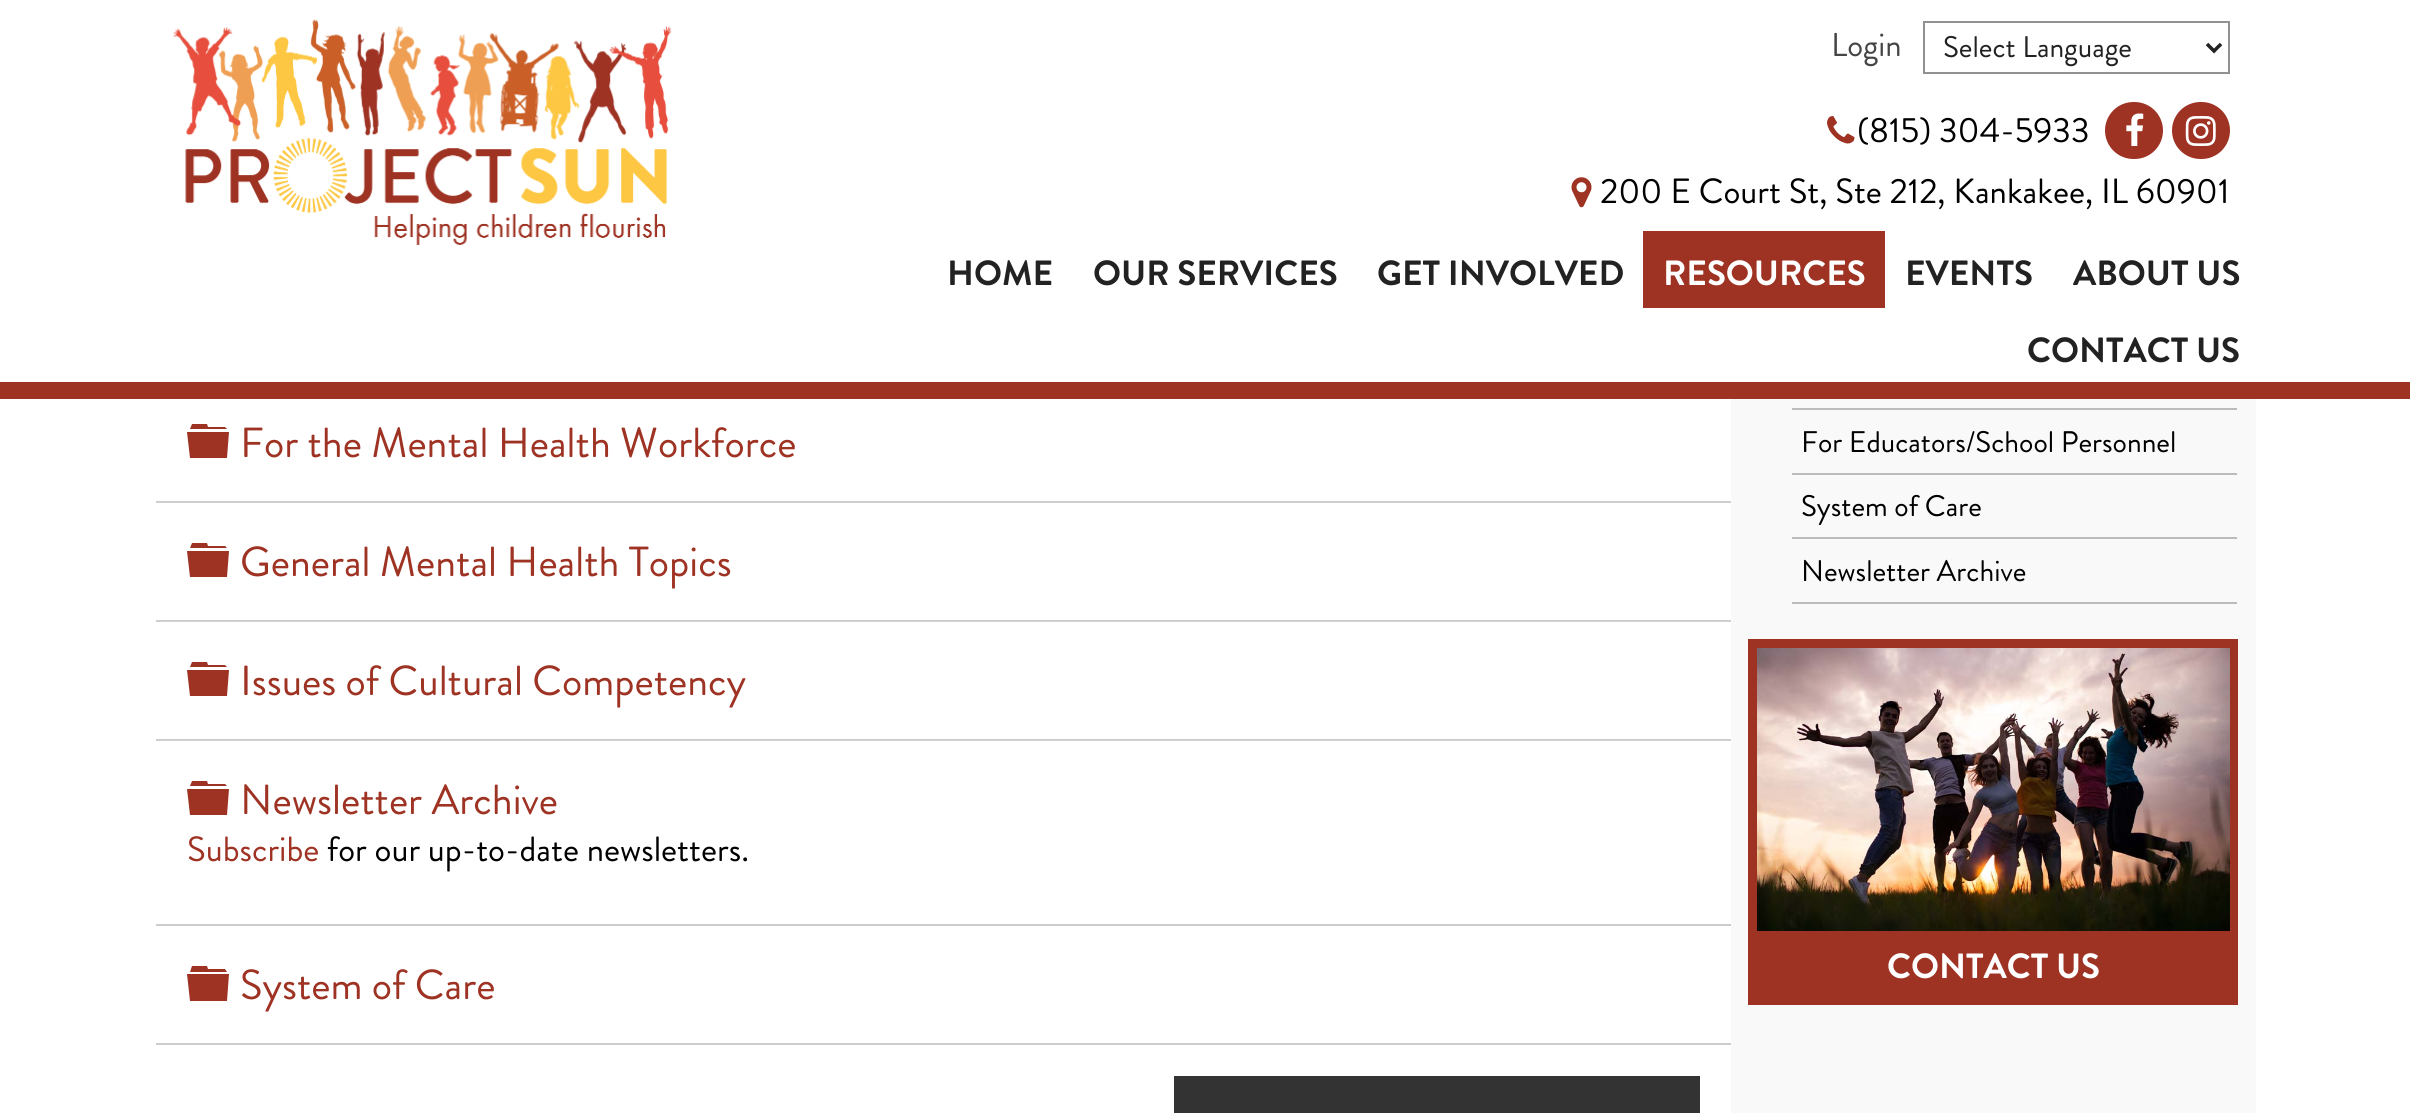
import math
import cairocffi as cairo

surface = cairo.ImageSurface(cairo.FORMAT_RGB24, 2410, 1113)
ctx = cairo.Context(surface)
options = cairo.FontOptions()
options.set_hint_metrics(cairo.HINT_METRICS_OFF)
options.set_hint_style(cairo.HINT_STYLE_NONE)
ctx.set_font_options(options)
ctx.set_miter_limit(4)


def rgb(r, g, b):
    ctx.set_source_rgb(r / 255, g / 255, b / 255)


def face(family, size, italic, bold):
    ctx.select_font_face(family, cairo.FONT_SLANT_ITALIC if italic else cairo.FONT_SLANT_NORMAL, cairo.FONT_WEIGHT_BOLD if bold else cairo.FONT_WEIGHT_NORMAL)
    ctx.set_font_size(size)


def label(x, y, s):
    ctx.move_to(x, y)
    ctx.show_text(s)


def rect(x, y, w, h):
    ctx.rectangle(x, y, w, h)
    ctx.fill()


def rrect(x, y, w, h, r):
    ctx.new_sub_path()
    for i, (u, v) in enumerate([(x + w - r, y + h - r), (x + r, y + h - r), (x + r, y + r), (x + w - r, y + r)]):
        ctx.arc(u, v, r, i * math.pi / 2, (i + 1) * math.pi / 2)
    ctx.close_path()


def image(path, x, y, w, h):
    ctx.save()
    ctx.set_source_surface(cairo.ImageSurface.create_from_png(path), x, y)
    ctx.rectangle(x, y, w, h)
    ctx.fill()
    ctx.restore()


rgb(255, 255, 255)
ctx.paint()
rgb(158, 50, 35)
rect(0, 382, 2410, 17)
image('image0.png', 173, 19, 499, 226)
face('Brandon Grotesque', 33, 0, 0)
rgb(70, 70, 70)
label(1831, 56, 'Login')
ctx.rectangle(1924, 22, 305, 51)
rgb(145, 145, 145)
ctx.stroke()
ctx.new_path()
ctx.move_to(2207, 44)
ctx.line_to(2214, 51)
ctx.line_to(2221, 44)
rgb(34, 34, 34)
ctx.set_line_width(3.5)
ctx.stroke()
face('Brandon Grotesque', 29.75, 0, 0)
label(1943, 57, 'Select Language')
image('image1.png', 1827, 116, 28, 28)
face('Brandon Grotesque', 35, 0, 0)
rgb(0, 0, 0)
label(1857, 142, '(815) 304-5933')
rgb(158, 50, 35)
rrect(2105, 102, 58, 57, 28.5)
ctx.fill()
image('image2.png', 2126, 113, 18, 33)
rrect(2172, 102, 58, 57, 28.5)
ctx.fill()
image('image3.png', 2185, 116, 31, 30)
image('image4.png', 1571, 177, 21, 31)
rgb(0, 0, 0)
label(1600, 203, '200 E Court St, Ste 212, Kankakee, IL 60901')
face('Brandon Grotesque', 35, 0, 1)
rgb(34, 34, 34)
label(947, 285, 'HOME')
label(1093, 285, 'OUR SERVICES')
label(1377, 285, 'GET INVOLVED')
rgb(158, 50, 35)
rect(1643, 231, 242, 77)
rgb(255, 255, 255)
label(1663, 285, 'RESOURCES')
rgb(34, 34, 34)
label(1905, 285, 'EVENTS')
label(2073, 285, 'ABOUT US')
label(2027, 362, 'CONTACT US')
rgb(204, 204, 204)
rect(156, 501, 1575, 1)
rgb(209, 209, 209)
rect(156, 502, 1575, 1)
rgb(158, 50, 35)
ctx.new_path()
ctx.move_to(187, 432)
ctx.line_to(229, 432)
ctx.line_to(227, 458)
ctx.line_to(190, 458)
ctx.close_path()
ctx.move_to(225, 427)
ctx.line_to(227, 429)
ctx.line_to(190, 429)
ctx.line_to(192, 424)
ctx.line_to(207, 424)
ctx.line_to(208, 427)
ctx.close_path()
ctx.fill()
face('Brandon Grotesque', 42, 0, 0)
label(240, 457, 'For the Mental Health Workforce')
rgb(204, 204, 204)
rect(156, 620, 1575, 1)
rgb(209, 209, 209)
rect(156, 621, 1575, 1)
rgb(158, 50, 35)
ctx.new_path()
ctx.move_to(187, 551)
ctx.line_to(229, 551)
ctx.line_to(227, 577)
ctx.line_to(190, 577)
ctx.close_path()
ctx.move_to(225, 546)
ctx.line_to(227, 548)
ctx.line_to(190, 548)
ctx.line_to(192, 543)
ctx.line_to(207, 543)
ctx.line_to(208, 546)
ctx.close_path()
ctx.fill()
label(240, 576, 'General Mental Health Topics')
rgb(204, 204, 204)
rect(156, 739, 1575, 1)
rgb(209, 209, 209)
rect(156, 740, 1575, 1)
rgb(158, 50, 35)
ctx.new_path()
ctx.move_to(187, 670)
ctx.line_to(229, 670)
ctx.line_to(227, 696)
ctx.line_to(190, 696)
ctx.close_path()
ctx.move_to(225, 665)
ctx.line_to(227, 667)
ctx.line_to(190, 667)
ctx.line_to(192, 662)
ctx.line_to(207, 662)
ctx.line_to(208, 665)
ctx.close_path()
ctx.fill()
label(240, 695, 'Issues of Cultural Competency')
rgb(204, 204, 204)
rect(156, 924, 1575, 2)
rgb(158, 50, 35)
ctx.new_path()
ctx.move_to(187, 789)
ctx.line_to(229, 789)
ctx.line_to(227, 815)
ctx.line_to(190, 815)
ctx.close_path()
ctx.move_to(225, 784)
ctx.line_to(227, 786)
ctx.line_to(190, 786)
ctx.line_to(192, 781)
ctx.line_to(207, 781)
ctx.line_to(208, 784)
ctx.close_path()
ctx.fill()
label(240, 814, 'Newsletter Archive')
face('Brandon Grotesque', 35, 0, 0)
label(187, 861, 'Subscribe')
rgb(0, 0, 0)
label(327, 861, 'for our up-to-date newsletters.')
rgb(204, 204, 204)
rect(156, 1043, 1575, 2)
rgb(158, 50, 35)
ctx.new_path()
ctx.move_to(187, 974)
ctx.line_to(229, 974)
ctx.line_to(227, 1001)
ctx.line_to(190, 1001)
ctx.close_path()
ctx.move_to(225, 969)
ctx.line_to(227, 972)
ctx.line_to(190, 972)
ctx.line_to(192, 966)
ctx.line_to(207, 966)
ctx.line_to(208, 969)
ctx.close_path()
ctx.fill()
face('Brandon Grotesque', 42, 0, 0)
label(240, 999, 'System of Care')
rgb(51, 51, 51)
rect(1174, 1076, 526, 37)
rgb(249, 249, 249)
rect(1731, 399, 525, 714)
rgb(187, 187, 187)
rect(1792, 408, 445, 2)
rect(1792, 473, 445, 2)
face('Brandon Grotesque', 29.75, 0, 0)
rgb(0, 0, 0)
label(1801, 452, 'For Educators/School Personnel')
rgb(187, 187, 187)
rect(1792, 537, 445, 2)
rgb(0, 0, 0)
label(1801, 516, 'System of Care')
rgb(187, 187, 187)
rect(1792, 602, 445, 2)
rgb(0, 0, 0)
label(1801, 581, 'Newsletter Archive')
rgb(158, 50, 35)
rect(1748, 639, 490, 366)
image('image5.png', 1757, 648, 473, 283)
face('Brandon Grotesque', 35, 0, 1)
rgb(255, 255, 255)
label(1887, 978, 'CONTACT US')
surface.write_to_png('render.png')
